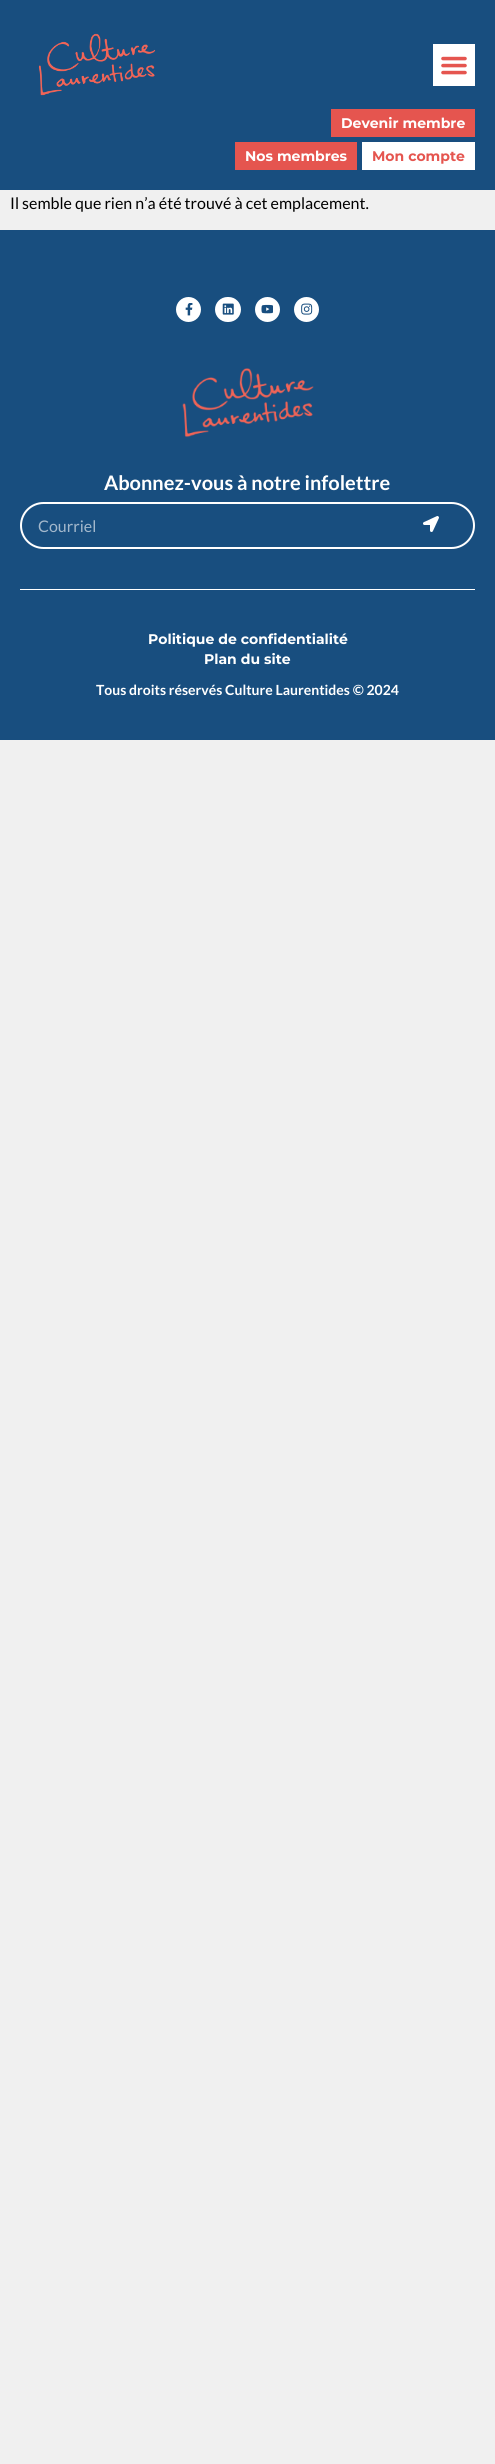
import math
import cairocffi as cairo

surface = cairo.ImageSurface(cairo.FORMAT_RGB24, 495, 2464)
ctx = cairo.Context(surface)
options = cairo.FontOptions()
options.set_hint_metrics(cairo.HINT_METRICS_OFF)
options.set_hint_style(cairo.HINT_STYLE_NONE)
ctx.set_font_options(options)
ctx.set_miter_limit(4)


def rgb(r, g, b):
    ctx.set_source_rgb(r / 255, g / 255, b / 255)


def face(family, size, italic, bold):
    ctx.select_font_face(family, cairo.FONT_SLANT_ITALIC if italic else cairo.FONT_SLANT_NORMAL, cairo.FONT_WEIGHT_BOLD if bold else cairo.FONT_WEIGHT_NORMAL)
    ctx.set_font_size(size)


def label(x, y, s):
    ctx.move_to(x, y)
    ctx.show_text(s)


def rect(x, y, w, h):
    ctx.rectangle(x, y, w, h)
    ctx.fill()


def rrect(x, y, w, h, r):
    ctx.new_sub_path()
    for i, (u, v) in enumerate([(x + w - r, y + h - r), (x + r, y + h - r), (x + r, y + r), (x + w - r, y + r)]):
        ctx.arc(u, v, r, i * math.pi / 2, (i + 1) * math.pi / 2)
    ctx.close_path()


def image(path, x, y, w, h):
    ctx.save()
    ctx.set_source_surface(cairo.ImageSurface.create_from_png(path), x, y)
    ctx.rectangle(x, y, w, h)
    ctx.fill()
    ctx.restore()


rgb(240, 240, 240)
ctx.paint()
rgb(24, 78, 127)
rect(0, 0, 495, 190)
image('image0.png', 38, 33, 118, 63)
rgb(255, 255, 255)
rect(433, 44, 42, 42)
image('image1.png', 441, 56, 26, 19)
rgb(229, 85, 79)
rect(331, 109, 144, 28)
face('Montserrat', 14, 0, 1)
rgb(255, 255, 255)
label(341, 128, 'Devenir membre')
rgb(229, 85, 79)
rect(235, 142, 122, 28)
rgb(255, 255, 255)
label(245, 161, 'Nos membres')
rect(362, 142, 113, 28)
rgb(229, 85, 79)
label(372, 161, 'Mon compte')
face('Lato', 16, 0, 0)
rgb(0, 0, 0)
label(10, 209, 'Il semble que rien n’a été trouvé à cet emplacement.')
rgb(24, 78, 127)
rect(0, 230, 495, 510)
rgb(255, 255, 255)
ctx.new_path()
ctx.arc(188.5, 309.5, 12.5, 0, 2 * math.pi)
ctx.fill()
image('image2.png', 185, 303, 8, 13)
rrect(215, 297, 26, 25, 12.5)
ctx.fill()
image('image3.png', 222, 303, 12, 12)
ctx.arc(267.5, 309.5, 12.5, 0, 2 * math.pi)
ctx.fill()
image('image4.png', 261, 304, 12, 10)
ctx.arc(306.5, 309.5, 12.5, 0, 2 * math.pi)
ctx.fill()
image('image5.png', 301, 303, 12, 12)
image('image6.png', 182, 368, 132, 70)
face('Lato', 20, 0, 1)
label(104, 490, 'Abonnez-vous à notre infolettre')
rrect(21, 503, 453, 45, 22.5)
ctx.stroke()
face('Lato', 16, 0, 0)
rgb(163, 184, 204)
label(38, 532, 'Courriel')
image('image7.png', 423, 516, 16, 16)
rgb(255, 255, 255)
rect(20, 589, 455, 1)
face('Montserrat', 14, 0, 1)
label(148, 644, 'Politique de confidentialité')
label(204, 664, 'Plan du site')
face('Lato', 14, 0, 1)
label(96, 695, 'Tous droits réservés Culture Laurentides © 2024')
surface.write_to_png('render.png')
